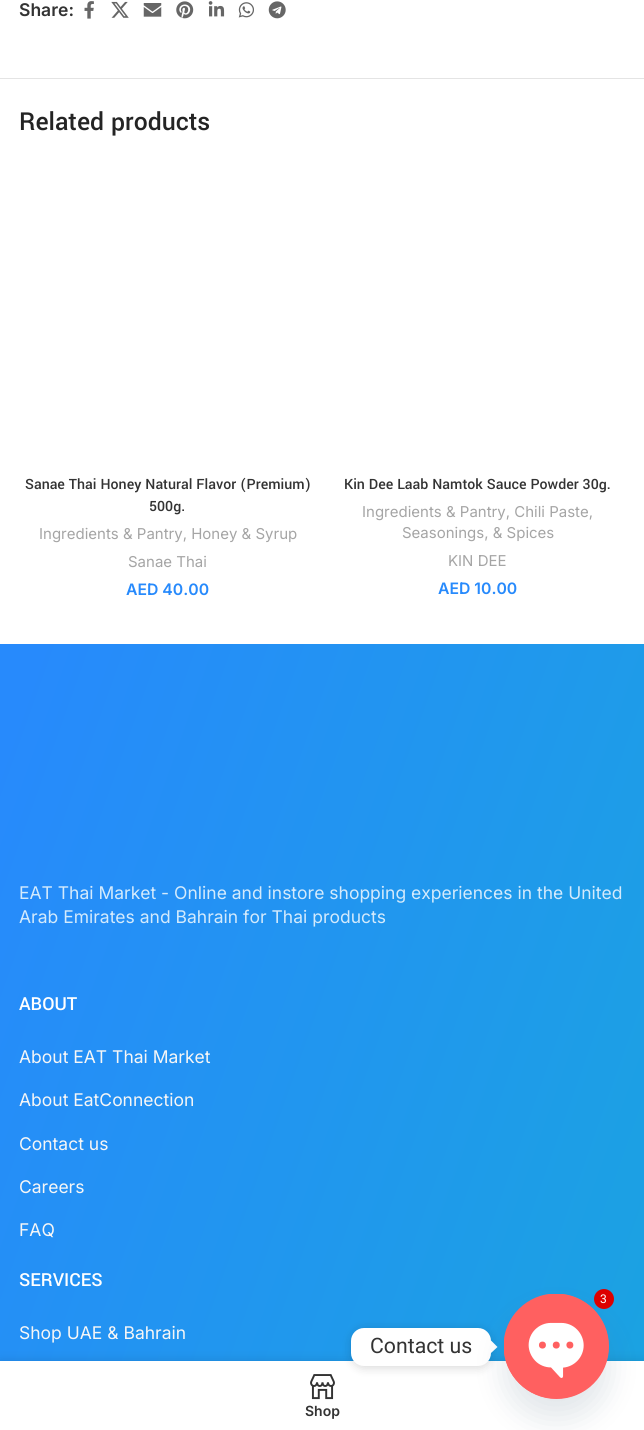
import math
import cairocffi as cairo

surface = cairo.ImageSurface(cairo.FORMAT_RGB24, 644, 1430)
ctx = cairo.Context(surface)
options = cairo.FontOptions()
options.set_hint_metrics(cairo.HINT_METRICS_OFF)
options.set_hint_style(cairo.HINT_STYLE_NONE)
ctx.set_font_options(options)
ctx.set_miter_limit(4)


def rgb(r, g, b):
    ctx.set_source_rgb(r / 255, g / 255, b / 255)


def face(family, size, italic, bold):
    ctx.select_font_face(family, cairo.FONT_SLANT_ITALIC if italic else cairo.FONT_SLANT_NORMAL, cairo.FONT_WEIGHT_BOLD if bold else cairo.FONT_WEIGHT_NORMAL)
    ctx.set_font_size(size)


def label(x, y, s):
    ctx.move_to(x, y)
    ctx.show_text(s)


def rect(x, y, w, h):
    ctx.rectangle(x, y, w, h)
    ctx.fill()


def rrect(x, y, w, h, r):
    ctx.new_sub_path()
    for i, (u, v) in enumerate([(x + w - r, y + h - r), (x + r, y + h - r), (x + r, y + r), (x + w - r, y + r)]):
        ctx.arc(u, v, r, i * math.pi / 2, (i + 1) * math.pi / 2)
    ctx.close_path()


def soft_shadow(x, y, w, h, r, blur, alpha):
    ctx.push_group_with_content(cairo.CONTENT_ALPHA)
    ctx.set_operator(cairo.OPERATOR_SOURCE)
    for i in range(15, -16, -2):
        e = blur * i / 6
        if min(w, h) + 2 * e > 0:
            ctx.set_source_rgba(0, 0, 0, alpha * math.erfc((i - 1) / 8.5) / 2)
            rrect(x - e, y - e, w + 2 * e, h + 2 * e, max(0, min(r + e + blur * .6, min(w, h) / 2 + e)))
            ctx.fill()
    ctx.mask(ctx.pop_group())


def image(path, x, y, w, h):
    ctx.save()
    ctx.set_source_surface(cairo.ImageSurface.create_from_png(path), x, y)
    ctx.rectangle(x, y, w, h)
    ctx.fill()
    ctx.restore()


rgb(255, 255, 255)
ctx.paint()
face('Inter SemiBold', 17.5, 0, 0)
rgb(51, 51, 51)
label(19, 16, 'Share:')
image('image0.png', 84, 1, 10, 18)
image('image1.png', 111, 1, 18, 17)
image('image2.png', 143, 3, 19, 14)
image('image3.png', 176, 1, 18, 18)
image('image4.png', 208, 1, 17, 16)
image('image5.png', 238, 2, 16, 16)
image('image6.png', 268, 1, 18, 18)
rgb(228, 228, 228)
rect(0, 78, 644, 1)
face('Yantramanav Medium', 27.5, 0, 0)
rgb(36, 36, 36)
label(19, 130, 'Related products')
face('Yantramanav Medium', 15.75, 0, 0)
rgb(51, 51, 51)
label(25, 489, 'Sanae Thai Honey Natural Flavor (Premium)')
label(149, 511, '500g.')
face('Inter', 15, 0, 0)
rgb(165, 165, 165)
label(39, 539, 'Ingredients & Pantry, Honey & Syrup')
label(128, 567, 'Sanae Thai')
face('Inter SemiBold', 15.75, 0, 0)
rgb(39, 138, 252)
label(126, 595, 'AED 40.00')
face('Yantramanav Medium', 15.75, 0, 0)
rgb(51, 51, 51)
label(344, 489, 'Kin Dee Laab Namtok Sauce Powder 30g.')
face('Inter', 15, 0, 0)
rgb(165, 165, 165)
label(362, 517, 'Ingredients & Pantry, Chili Paste,')
label(402, 538, 'Seasonings, & Spices')
label(448, 566, 'KIN DEE')
face('Inter SemiBold', 15.75, 0, 0)
rgb(39, 138, 252)
label(438, 594, 'AED 10.00')
gradient = cairo.LinearGradient(-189, 1175, 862, 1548)
gradient.add_color_stop_rgba(0.03, 0.153, 0.541, 0.988, 1)
gradient.add_color_stop_rgba(1, 0.09, 0.667, 0.851, 1)
ctx.set_source(gradient)
rect(0, 644, 644, 717)
face('Inter', 17.5, 0, 0)
rgb(211, 234, 252)
label(19, 899, 'EAT Thai Market - Online and instore shopping experiences in the United')
label(19, 923, 'Arab Emirates and Bahrain for Thai products')
face('Yantramanav Medium', 20, 0, 0)
rgb(255, 255, 255)
label(19, 1010, 'ABOUT')
face('Inter', 17.5, 0, 0)
rgb(246, 246, 246)
label(19, 1063, 'About EAT Thai Market')
label(19, 1106, 'About EatConnection')
label(19, 1150, 'Contact us')
label(19, 1193, 'Careers')
label(19, 1236, 'FAQ')
face('Yantramanav Medium', 20, 0, 0)
rgb(255, 255, 255)
label(19, 1286, 'SERVICES')
face('Inter', 17.5, 0, 0)
rgb(246, 246, 246)
label(19, 1339, 'Shop UAE & Bahrain')
rgb(0, 0, 0)
soft_shadow(0, 1361, 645, 69, 0, 5.5, 0.12)
rgb(255, 255, 255)
rect(0, 1361, 644, 69)
rgb(0, 0, 0)
soft_shadow(351, 1329, 140, 39, 13, 5, 0.15)
rgb(255, 255, 255)
rrect(351, 1328, 140, 38, 13)
ctx.fill()
ctx.new_path()
ctx.move_to(491, 1353)
ctx.line_to(491, 1340.5)
ctx.line_to(497.5, 1347)
ctx.close_path()
ctx.fill()
rgb(73, 104, 126)
soft_shadow(504, 1314, 105, 105, 52.5, 15, 0.16)
rgb(255, 96, 96)
ctx.arc(556.5, 1346.5, 52.5, 0, 2 * math.pi)
ctx.fill()
image('image7.png', 504, 1294, 105, 105)
rgb(221, 0, 0)
ctx.arc(604, 1299, 10, 0, 2 * math.pi)
ctx.fill()
face('Roboto', 12, 0, 0)
rgb(255, 255, 255)
label(600, 1303, '3')
face('Roboto', 21.25, 0, 0)
rgb(51, 51, 51)
label(370, 1353, 'Contact us')
image('image8.png', 310, 1374, 25, 26)
face('Inter SemiBold', 14, 0, 0)
label(305, 1416, 'Shop')
surface.write_to_png('render.png')
